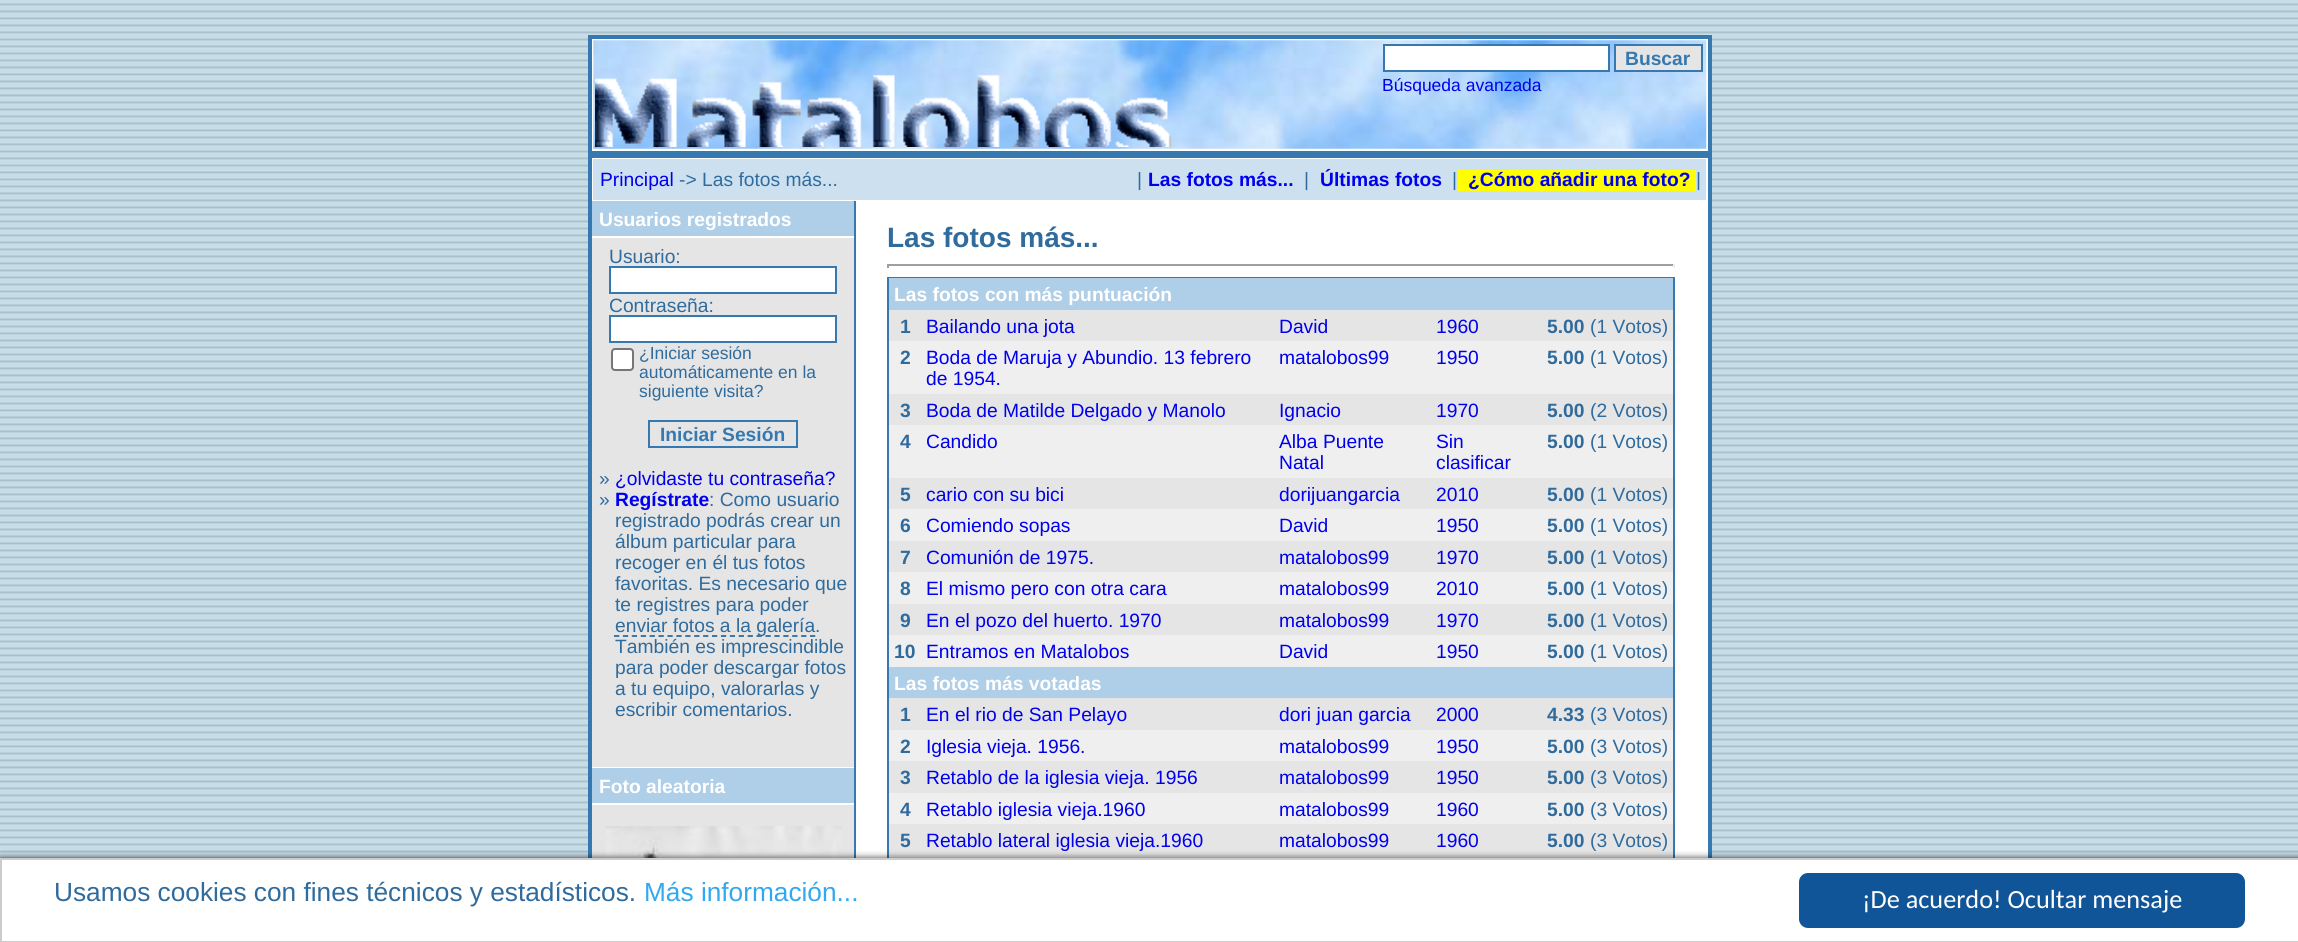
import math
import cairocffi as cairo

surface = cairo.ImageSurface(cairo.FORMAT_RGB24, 2298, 942)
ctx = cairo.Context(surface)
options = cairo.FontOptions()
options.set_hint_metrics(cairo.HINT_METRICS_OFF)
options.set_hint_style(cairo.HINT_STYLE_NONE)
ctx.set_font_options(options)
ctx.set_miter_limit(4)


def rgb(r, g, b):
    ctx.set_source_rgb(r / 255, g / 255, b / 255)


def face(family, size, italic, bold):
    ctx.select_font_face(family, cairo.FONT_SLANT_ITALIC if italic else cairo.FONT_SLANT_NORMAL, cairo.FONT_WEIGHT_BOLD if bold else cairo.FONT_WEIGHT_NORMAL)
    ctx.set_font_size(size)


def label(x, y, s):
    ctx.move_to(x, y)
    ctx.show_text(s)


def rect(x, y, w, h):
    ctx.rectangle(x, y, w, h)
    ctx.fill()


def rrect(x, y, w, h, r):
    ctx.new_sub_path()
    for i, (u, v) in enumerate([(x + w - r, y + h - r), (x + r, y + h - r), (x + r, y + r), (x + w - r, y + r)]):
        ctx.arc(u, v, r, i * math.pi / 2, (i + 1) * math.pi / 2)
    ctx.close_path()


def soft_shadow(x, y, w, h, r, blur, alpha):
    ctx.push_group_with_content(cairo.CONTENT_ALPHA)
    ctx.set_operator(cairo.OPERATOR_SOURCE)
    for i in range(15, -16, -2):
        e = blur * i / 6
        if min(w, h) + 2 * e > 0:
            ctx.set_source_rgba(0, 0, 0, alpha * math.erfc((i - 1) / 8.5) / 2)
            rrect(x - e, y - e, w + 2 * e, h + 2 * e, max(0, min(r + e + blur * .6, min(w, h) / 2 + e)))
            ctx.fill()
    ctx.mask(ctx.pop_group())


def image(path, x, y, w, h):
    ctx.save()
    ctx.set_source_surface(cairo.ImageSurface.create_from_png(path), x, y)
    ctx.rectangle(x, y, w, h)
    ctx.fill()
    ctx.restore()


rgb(255, 255, 255)
ctx.paint()
image('image0.png', 0, 0, 2298, 858)
rgb(53, 121, 176)
rect(588, 35, 1124, 823)
rgb(255, 255, 255)
rect(592, 39, 1116, 112)
image('image1.png', 593, 40, 1114, 109)
image('image2.png', 595, 74, 577, 73)
ctx.rectangle(1384, 45, 225, 26)
ctx.fill_preserve()
rgb(53, 121, 176)
ctx.stroke()
rgb(229, 229, 229)
ctx.rectangle(1615, 45, 87, 26)
ctx.fill_preserve()
rgb(53, 121, 176)
ctx.stroke()
face('Liberation Sans', 19.25, 0, 1)
label(1625, 65, 'Buscar')
face('Liberation Sans', 17.5, 0, 0)
rgb(0, 0, 238)
label(1382, 91, 'Búsqueda avanzada')
rgb(255, 255, 255)
rect(592, 158, 1116, 700)
rgb(205, 224, 240)
rect(593, 159, 1113, 41)
face('Liberation Sans', 19.25, 0, 0)
rgb(0, 0, 238)
label(600, 186, 'Principal')
rgb(47, 107, 157)
label(679, 186, '-> Las fotos más...')
label(1137, 186, '|')
face('Liberation Sans', 19.25, 0, 1)
rgb(0, 0, 238)
label(1148, 186, 'Las fotos más...')
face('Liberation Sans', 19.25, 0, 0)
rgb(47, 107, 157)
label(1304, 186, '|')
face('Liberation Sans', 19.25, 0, 1)
rgb(0, 0, 238)
label(1320, 186, 'Últimas fotos')
face('Liberation Sans', 19.25, 0, 0)
rgb(47, 107, 157)
label(1452, 186, '|')
rgb(255, 255, 0)
rect(1458, 170, 238, 21)
face('Liberation Sans', 19.25, 0, 1)
rgb(0, 0, 238)
label(1468, 186, '¿Cómo añadir una foto?')
face('Liberation Sans', 19.25, 0, 0)
rgb(47, 107, 157)
label(1696, 186, '|')
rgb(229, 229, 229)
rect(592, 238, 262, 620)
rgb(175, 206, 231)
rect(592, 201, 262, 35)
face('Liberation Sans', 19.25, 0, 1)
rgb(255, 255, 255)
label(599, 226, 'Usuarios registrados')
face('Liberation Sans', 19.25, 0, 0)
rgb(47, 107, 157)
label(609, 263, 'Usuario:')
rgb(255, 255, 255)
ctx.rectangle(610, 267, 226, 26)
ctx.fill_preserve()
rgb(53, 121, 176)
ctx.stroke()
rgb(47, 107, 157)
label(609, 312, 'Contraseña:')
rgb(255, 255, 255)
ctx.rectangle(610, 316, 226, 26)
ctx.fill_preserve()
rgb(53, 121, 176)
ctx.stroke()
rgb(255, 255, 255)
rrect(612, 349, 21, 21, 3)
ctx.fill_preserve()
rgb(118, 118, 118)
ctx.stroke()
face('Liberation Sans', 17.5, 0, 0)
rgb(47, 107, 157)
label(639, 359, '¿Iniciar sesión')
label(639, 378, 'automáticamente en la')
label(639, 397, 'siguiente visita?')
ctx.rectangle(649, 421, 148, 26)
rgb(53, 121, 176)
ctx.stroke()
face('Liberation Sans', 19.25, 0, 1)
label(660, 441, 'Iniciar Sesión')
face('Liberation Sans', 19.25, 0, 0)
rgb(47, 107, 157)
label(599, 485, '»')
rgb(0, 0, 238)
label(615, 485, '¿olvidaste tu contraseña?')
rgb(47, 107, 157)
label(599, 506, '»')
face('Liberation Sans', 19.25, 0, 1)
rgb(0, 0, 238)
label(615, 506, 'Regístrate')
face('Liberation Sans', 19.25, 0, 0)
rgb(47, 107, 157)
label(709, 506, ': Como usuario')
label(615, 527, 'registrado podrás crear un')
label(615, 548, 'álbum particular para')
label(615, 569, 'recoger en él tus fotos')
label(615, 590, 'favoritas. Es necesario que')
label(615, 611, 'te registres para poder')
ctx.new_path()
ctx.move_to(614, 636)
ctx.line_to(815.5, 636)
ctx.set_line_width(1.8)
ctx.set_dash([5.25, 3.66])
ctx.stroke()
label(615, 632, 'enviar fotos a la galería.')
label(615, 653, 'También es imprescindible')
label(615, 674, 'para poder descargar fotos')
label(615, 695, 'a tu equipo, valorarlas y')
label(615, 716, 'escribir comentarios.')
rgb(255, 255, 255)
rect(592, 767, 262, 1)
rgb(175, 206, 231)
rect(592, 768, 262, 35)
face('Liberation Sans', 19.25, 0, 1)
rgb(255, 255, 255)
label(599, 793, 'Foto aleatoria')
rect(592, 803, 262, 2)
image('image3.png', 605, 826, 237, 32)
rgb(53, 121, 176)
rect(854, 201, 2, 657)
face('Liberation Sans', 28, 0, 1)
rgb(47, 107, 157)
label(887, 247, 'Las fotos más...')
rgb(159, 159, 159)
rect(887, 264, 788, 2)
rgb(238, 238, 238)
rect(1673, 264, 2, 4)
rgb(159, 159, 159)
rect(887, 264, 2, 4)
rgb(53, 121, 176)
rect(887, 277, 788, 581)
rgb(175, 206, 231)
rect(889, 278, 784, 32)
face('Liberation Sans', 19.25, 0, 1)
rgb(255, 255, 255)
label(894, 301, 'Las fotos con más puntuación')
rgb(229, 229, 229)
rect(889, 310, 784, 31)
rgb(47, 107, 157)
label(900, 333, '1')
face('Liberation Sans', 19.25, 0, 0)
rgb(0, 0, 238)
label(926, 333, 'Bailando una jota')
label(1279, 333, 'David')
label(1436, 333, '1960')
face('Liberation Sans', 19.25, 0, 1)
rgb(47, 107, 157)
label(1547, 333, '5.00')
face('Liberation Sans', 19.25, 0, 0)
label(1590, 333, '(1 Votos)')
rgb(239, 239, 239)
rect(889, 341, 784, 53)
face('Liberation Sans', 19.25, 0, 1)
rgb(47, 107, 157)
label(900, 364, '2')
face('Liberation Sans', 19.25, 0, 0)
rgb(0, 0, 238)
label(926, 364, 'Boda de Maruja y Abundio. 13 febrero')
label(926, 385, 'de 1954.')
label(1279, 364, 'matalobos99')
label(1436, 364, '1950')
face('Liberation Sans', 19.25, 0, 1)
rgb(47, 107, 157)
label(1547, 364, '5.00')
face('Liberation Sans', 19.25, 0, 0)
label(1590, 364, '(1 Votos)')
rgb(229, 229, 229)
rect(889, 394, 784, 31)
face('Liberation Sans', 19.25, 0, 1)
rgb(47, 107, 157)
label(900, 417, '3')
face('Liberation Sans', 19.25, 0, 0)
rgb(0, 0, 238)
label(926, 417, 'Boda de Matilde Delgado y Manolo')
label(1279, 417, 'Ignacio')
label(1436, 417, '1970')
face('Liberation Sans', 19.25, 0, 1)
rgb(47, 107, 157)
label(1547, 417, '5.00')
face('Liberation Sans', 19.25, 0, 0)
label(1590, 417, '(2 Votos)')
rgb(239, 239, 239)
rect(889, 425, 784, 53)
face('Liberation Sans', 19.25, 0, 1)
rgb(47, 107, 157)
label(900, 448, '4')
face('Liberation Sans', 19.25, 0, 0)
rgb(0, 0, 238)
label(926, 448, 'Candido')
label(1279, 448, 'Alba Puente')
label(1279, 469, 'Natal')
label(1436, 448, 'Sin')
label(1436, 469, 'clasificar')
face('Liberation Sans', 19.25, 0, 1)
rgb(47, 107, 157)
label(1547, 448, '5.00')
face('Liberation Sans', 19.25, 0, 0)
label(1590, 448, '(1 Votos)')
rgb(229, 229, 229)
rect(889, 478, 784, 31)
face('Liberation Sans', 19.25, 0, 1)
rgb(47, 107, 157)
label(900, 501, '5')
face('Liberation Sans', 19.25, 0, 0)
rgb(0, 0, 238)
label(926, 501, 'cario con su bici')
label(1279, 501, 'dorijuangarcia')
label(1436, 501, '2010')
face('Liberation Sans', 19.25, 0, 1)
rgb(47, 107, 157)
label(1547, 501, '5.00')
face('Liberation Sans', 19.25, 0, 0)
label(1590, 501, '(1 Votos)')
rgb(239, 239, 239)
rect(889, 509, 784, 32)
face('Liberation Sans', 19.25, 0, 1)
rgb(47, 107, 157)
label(900, 532, '6')
face('Liberation Sans', 19.25, 0, 0)
rgb(0, 0, 238)
label(926, 532, 'Comiendo sopas')
label(1279, 532, 'David')
label(1436, 532, '1950')
face('Liberation Sans', 19.25, 0, 1)
rgb(47, 107, 157)
label(1547, 532, '5.00')
face('Liberation Sans', 19.25, 0, 0)
label(1590, 532, '(1 Votos)')
rgb(229, 229, 229)
rect(889, 541, 784, 31)
face('Liberation Sans', 19.25, 0, 1)
rgb(47, 107, 157)
label(900, 564, '7')
face('Liberation Sans', 19.25, 0, 0)
rgb(0, 0, 238)
label(926, 564, 'Comunión de 1975.')
label(1279, 564, 'matalobos99')
label(1436, 564, '1970')
face('Liberation Sans', 19.25, 0, 1)
rgb(47, 107, 157)
label(1547, 564, '5.00')
face('Liberation Sans', 19.25, 0, 0)
label(1590, 564, '(1 Votos)')
rgb(239, 239, 239)
rect(889, 572, 784, 32)
face('Liberation Sans', 19.25, 0, 1)
rgb(47, 107, 157)
label(900, 595, '8')
face('Liberation Sans', 19.25, 0, 0)
rgb(0, 0, 238)
label(926, 595, 'El mismo pero con otra cara')
label(1279, 595, 'matalobos99')
label(1436, 595, '2010')
face('Liberation Sans', 19.25, 0, 1)
rgb(47, 107, 157)
label(1547, 595, '5.00')
face('Liberation Sans', 19.25, 0, 0)
label(1590, 595, '(1 Votos)')
rgb(229, 229, 229)
rect(889, 604, 784, 31)
face('Liberation Sans', 19.25, 0, 1)
rgb(47, 107, 157)
label(900, 627, '9')
face('Liberation Sans', 19.25, 0, 0)
rgb(0, 0, 238)
label(926, 627, 'En el pozo del huerto. 1970')
label(1279, 627, 'matalobos99')
label(1436, 627, '1970')
face('Liberation Sans', 19.25, 0, 1)
rgb(47, 107, 157)
label(1547, 627, '5.00')
face('Liberation Sans', 19.25, 0, 0)
label(1590, 627, '(1 Votos)')
rgb(239, 239, 239)
rect(889, 635, 784, 32)
face('Liberation Sans', 19.25, 0, 1)
rgb(47, 107, 157)
label(894, 658, '10')
face('Liberation Sans', 19.25, 0, 0)
rgb(0, 0, 238)
label(926, 658, 'Entramos en Matalobos')
label(1279, 658, 'David')
label(1436, 658, '1950')
face('Liberation Sans', 19.25, 0, 1)
rgb(47, 107, 157)
label(1547, 658, '5.00')
face('Liberation Sans', 19.25, 0, 0)
label(1590, 658, '(1 Votos)')
rgb(175, 206, 231)
rect(889, 667, 784, 31)
face('Liberation Sans', 19.25, 0, 1)
rgb(255, 255, 255)
label(894, 690, 'Las fotos más votadas')
rgb(229, 229, 229)
rect(889, 698, 784, 32)
rgb(47, 107, 157)
label(900, 721, '1')
face('Liberation Sans', 19.25, 0, 0)
rgb(0, 0, 238)
label(926, 721, 'En el rio de San Pelayo')
label(1279, 721, 'dori juan garcia')
label(1436, 721, '2000')
face('Liberation Sans', 19.25, 0, 1)
rgb(47, 107, 157)
label(1547, 721, '4.33')
face('Liberation Sans', 19.25, 0, 0)
label(1590, 721, '(3 Votos)')
rgb(239, 239, 239)
rect(889, 730, 784, 31)
face('Liberation Sans', 19.25, 0, 1)
rgb(47, 107, 157)
label(900, 753, '2')
face('Liberation Sans', 19.25, 0, 0)
rgb(0, 0, 238)
label(926, 753, 'Iglesia vieja. 1956.')
label(1279, 753, 'matalobos99')
label(1436, 753, '1950')
face('Liberation Sans', 19.25, 0, 1)
rgb(47, 107, 157)
label(1547, 753, '5.00')
face('Liberation Sans', 19.25, 0, 0)
label(1590, 753, '(3 Votos)')
rgb(229, 229, 229)
rect(889, 761, 784, 32)
face('Liberation Sans', 19.25, 0, 1)
rgb(47, 107, 157)
label(900, 784, '3')
face('Liberation Sans', 19.25, 0, 0)
rgb(0, 0, 238)
label(926, 784, 'Retablo de la iglesia vieja. 1956')
label(1279, 784, 'matalobos99')
label(1436, 784, '1950')
face('Liberation Sans', 19.25, 0, 1)
rgb(47, 107, 157)
label(1547, 784, '5.00')
face('Liberation Sans', 19.25, 0, 0)
label(1590, 784, '(3 Votos)')
rgb(239, 239, 239)
rect(889, 793, 784, 31)
face('Liberation Sans', 19.25, 0, 1)
rgb(47, 107, 157)
label(900, 816, '4')
face('Liberation Sans', 19.25, 0, 0)
rgb(0, 0, 238)
label(926, 816, 'Retablo iglesia vieja.1960')
label(1279, 816, 'matalobos99')
label(1436, 816, '1960')
face('Liberation Sans', 19.25, 0, 1)
rgb(47, 107, 157)
label(1547, 816, '5.00')
face('Liberation Sans', 19.25, 0, 0)
label(1590, 816, '(3 Votos)')
rgb(229, 229, 229)
rect(889, 824, 784, 32)
face('Liberation Sans', 19.25, 0, 1)
rgb(47, 107, 157)
label(900, 847, '5')
face('Liberation Sans', 19.25, 0, 0)
rgb(0, 0, 238)
label(926, 847, 'Retablo lateral iglesia vieja.1960')
label(1279, 847, 'matalobos99')
label(1436, 847, '1960')
face('Liberation Sans', 19.25, 0, 1)
rgb(47, 107, 157)
label(1547, 847, '5.00')
face('Liberation Sans', 19.25, 0, 0)
label(1590, 847, '(3 Votos)')
rgb(239, 239, 239)
rect(889, 856, 784, 2)
rgb(0, 0, 0)
soft_shadow(0, 858, 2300, 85, 0, 3.5, 0.75)
rgb(255, 255, 255)
ctx.rectangle(1, 859, 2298, 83)
ctx.fill_preserve()
rgb(204, 204, 204)
ctx.set_line_width(2)
ctx.set_dash([])
ctx.stroke()
face('Liberation Sans', 26.25, 0, 0)
rgb(47, 107, 157)
label(54, 901, 'Usamos cookies con fines técnicos y estadísticos.')
rgb(49, 168, 240)
label(644, 901, 'Más información...')
rgb(17, 85, 153)
rrect(1799, 873, 446, 55, 9)
ctx.fill()
face('Carlito', 26.25, 0, 0)
rgb(255, 255, 255)
label(1862, 908, '¡De acuerdo! Ocultar mensaje')
surface.write_to_png('render.png')
